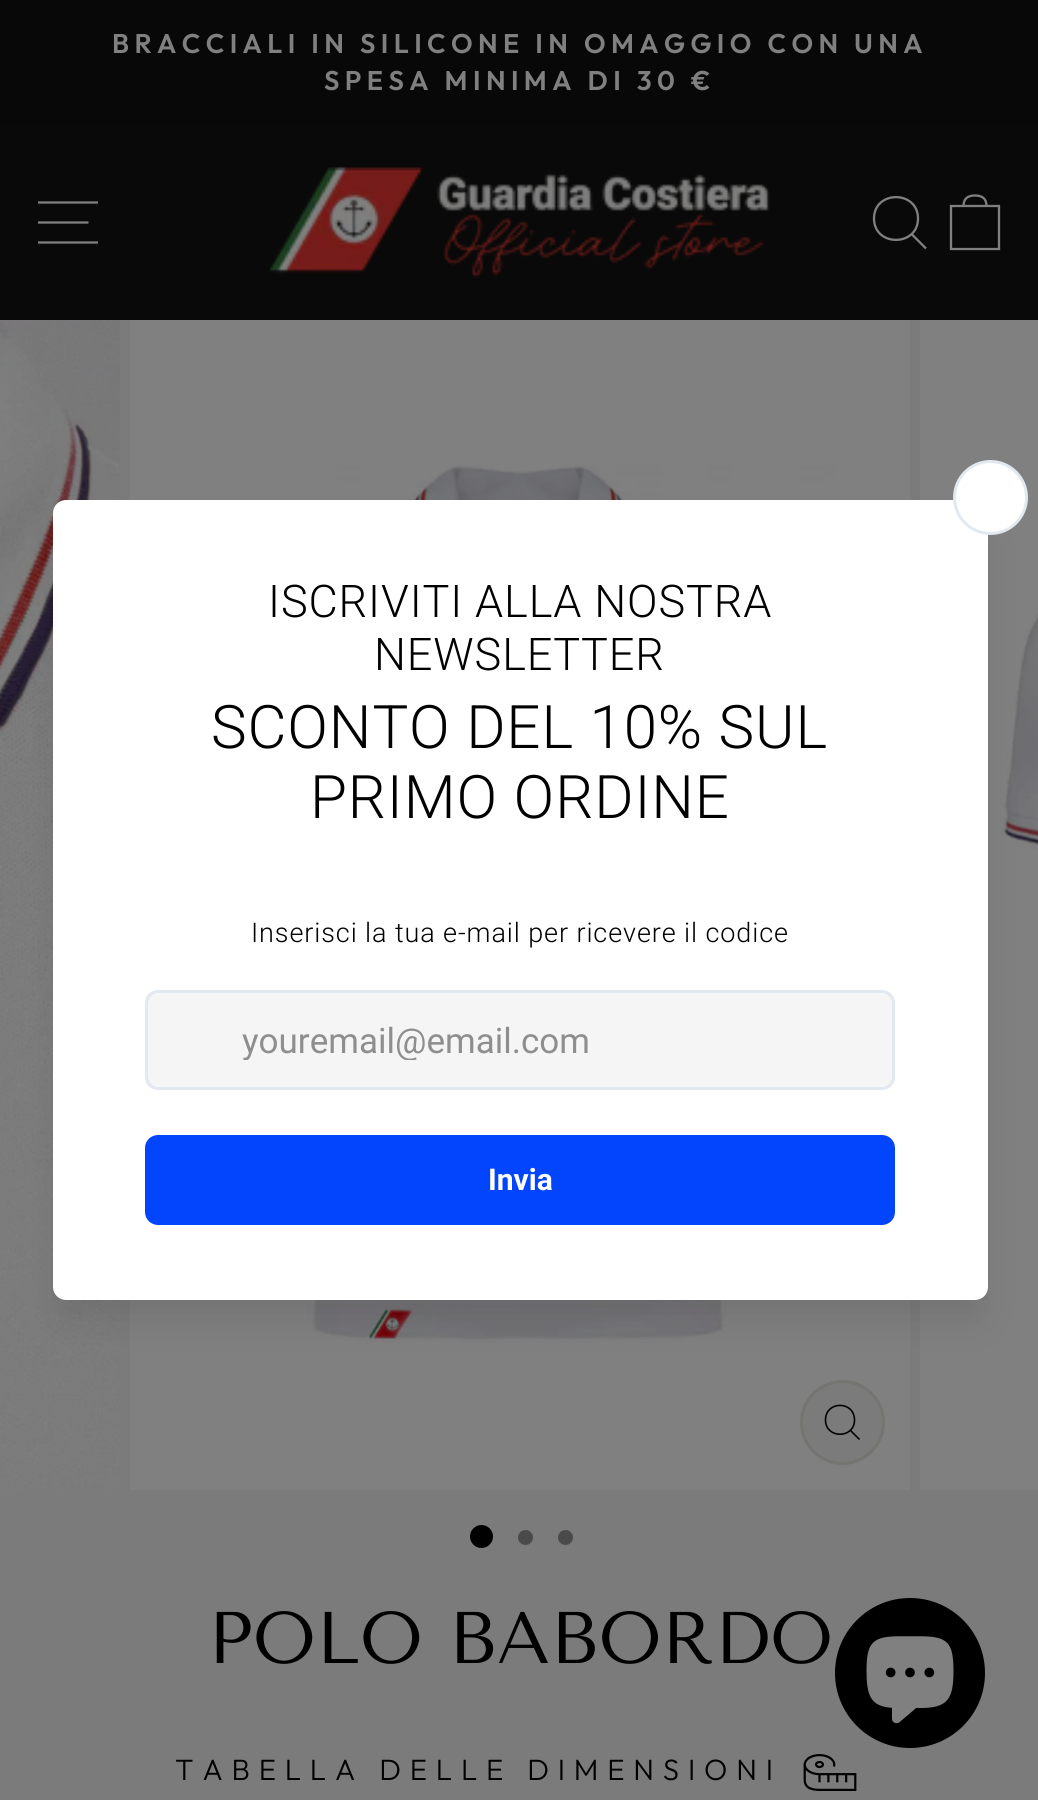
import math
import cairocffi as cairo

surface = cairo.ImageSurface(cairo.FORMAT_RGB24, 1038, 1800)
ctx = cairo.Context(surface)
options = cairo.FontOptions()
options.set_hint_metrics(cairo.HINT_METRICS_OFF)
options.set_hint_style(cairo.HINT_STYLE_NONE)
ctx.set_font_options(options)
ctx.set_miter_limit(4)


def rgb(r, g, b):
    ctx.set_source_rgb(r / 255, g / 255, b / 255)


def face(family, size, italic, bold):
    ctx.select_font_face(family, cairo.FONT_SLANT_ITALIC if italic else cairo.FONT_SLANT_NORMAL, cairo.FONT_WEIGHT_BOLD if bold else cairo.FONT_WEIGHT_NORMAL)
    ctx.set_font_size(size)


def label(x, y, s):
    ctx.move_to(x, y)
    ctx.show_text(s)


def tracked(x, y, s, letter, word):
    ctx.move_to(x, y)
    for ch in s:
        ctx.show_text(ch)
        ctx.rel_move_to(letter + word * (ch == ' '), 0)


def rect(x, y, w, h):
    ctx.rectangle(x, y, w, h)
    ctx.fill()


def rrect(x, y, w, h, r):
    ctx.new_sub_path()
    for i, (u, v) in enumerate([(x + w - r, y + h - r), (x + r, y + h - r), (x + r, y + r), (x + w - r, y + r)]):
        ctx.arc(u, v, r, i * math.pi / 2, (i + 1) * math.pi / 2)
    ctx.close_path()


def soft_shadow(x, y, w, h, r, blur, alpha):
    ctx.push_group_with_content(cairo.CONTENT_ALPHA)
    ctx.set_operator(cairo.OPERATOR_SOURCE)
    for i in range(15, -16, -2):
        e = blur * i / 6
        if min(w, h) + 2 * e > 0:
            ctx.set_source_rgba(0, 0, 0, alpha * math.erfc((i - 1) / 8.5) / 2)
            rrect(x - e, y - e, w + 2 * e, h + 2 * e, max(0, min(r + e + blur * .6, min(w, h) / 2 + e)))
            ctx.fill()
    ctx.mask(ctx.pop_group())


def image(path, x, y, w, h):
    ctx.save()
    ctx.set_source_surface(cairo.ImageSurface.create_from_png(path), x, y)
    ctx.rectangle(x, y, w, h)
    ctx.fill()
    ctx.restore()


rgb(123, 123, 123)
ctx.paint()
rgb(8, 8, 8)
rect(0, 0, 1038, 125)
face('Outfit SemiBold', 27, 0, 0)
rgb(128, 128, 128)
tracked(112, 53, 'BRACCIALI IN SILICONE IN OMAGGIO CON UNA', 5.4, 0)
tracked(324, 90, 'SPESA MINIMA DI 30 €', 5.4, 0)
rgb(9, 9, 9)
rect(0, 125, 1038, 195)
ctx.new_path()
ctx.move_to(38, 202.5)
ctx.line_to(98, 202.5)
ctx.move_to(38, 222.5)
ctx.line_to(88.5, 222.5)
ctx.move_to(38, 242.5)
ctx.line_to(98, 242.5)
rgb(128, 128, 128)
ctx.set_line_width(2.3)
ctx.stroke()
image('image0.png', 270, 167, 500, 111)
ctx.new_path()
ctx.move_to(918, 218.5)
ctx.curve_to(918, 247, 874, 247, 874, 218.5)
ctx.curve_to(874, 190, 918, 190, 918, 218.5)
ctx.close_path()
ctx.move_to(926, 248.5)
ctx.line_to(911.5, 234)
ctx.stroke()
ctx.new_path()
ctx.move_to(951, 206)
ctx.line_to(999, 206)
ctx.line_to(999, 249)
ctx.line_to(951, 249)
ctx.close_path()
ctx.move_to(963.5, 206)
ctx.curve_to(963.5, 198, 968.5, 195.5, 975, 195.5)
ctx.curve_to(981.5, 195.5, 986.5, 198, 986.5, 206)
ctx.stroke()
image('image1.png', 0, 320, 120, 1170)
rect(130, 320, 780, 1170)
image('image2.png', 200, 465, 636, 878)
rgb(123, 123, 123)
ctx.arc(842.5, 1422.5, 41, 0, 2 * math.pi)
ctx.fill_preserve()
rgb(116, 116, 113)
ctx.set_line_width(3)
ctx.stroke()
ctx.new_path()
ctx.move_to(854.5, 1420)
ctx.curve_to(854.5, 1439, 825.5, 1439, 825.5, 1420)
ctx.curve_to(825.5, 1400.5, 854.5, 1400.5, 854.5, 1420)
ctx.close_path()
ctx.move_to(859.5, 1439.5)
ctx.line_to(850.5, 1430.5)
rgb(0, 0, 0)
ctx.set_line_width(1.6)
ctx.stroke()
rgb(128, 128, 128)
rect(920, 320, 118, 1170)
image('image3.png', 1001, 614, 37, 235)
rgb(0, 0, 0)
ctx.arc(481.5, 1536.5, 11.5, 0, 2 * math.pi)
ctx.fill()
rgb(74, 74, 74)
ctx.arc(525.5, 1537.5, 7.5, 0, 2 * math.pi)
ctx.fill()
ctx.arc(565.5, 1537.5, 7.5, 0, 2 * math.pi)
ctx.fill()
face('Tenor Sans', 73, 0, 0)
rgb(0, 0, 0)
label(208, 1663, 'POLO BABORDO')
face('Outfit Light', 29.4, 0, 0)
tracked(175, 1780, 'TABELLA DELLE DIMENSIONI', 8.8, 0)
image('image4.png', 803, 1754, 54, 37)
rgb(0, 0, 0)
soft_shadow(60, 533, 920, 785, 5, 19, 0.1)
ctx.save()
ctx.rectangle(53, 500, 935, 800)
ctx.clip()
soft_shadow(60, 508, 920, 785, 5, 25, 0.12)
ctx.restore()
rgb(255, 255, 255)
rrect(53, 500, 935, 800, 13)
ctx.fill()
ctx.arc(990.5, 497.5, 36, 0, 2 * math.pi)
ctx.fill_preserve()
rgb(226, 232, 240)
ctx.set_line_width(3)
ctx.stroke()
face('Roboto Light', 45, 0, 0)
rgb(0, 0, 0)
tracked(268, 617, 'ISCRIVITI ALLA NOSTRA', 0.9, 0)
tracked(374, 670, 'NEWSLETTER', 0.9, 0)
face('Roboto Light', 60, 0, 0)
tracked(211, 748, 'SCONTO DEL 10% SUL', 0.9, 0)
tracked(310, 818, 'PRIMO ORDINE', 0.9, 0)
face('Roboto Light', 27, 0, 0)
tracked(251, 942, 'Inserisci la tua e-mail per ricevere il codice', 0.9, 0)
rgb(245, 245, 245)
rrect(146.5, 991.5, 747, 97, 11.5)
ctx.fill_preserve()
rgb(226, 232, 240)
ctx.stroke()
ctx.save()
ctx.rectangle(153, 1020, 735, 40)
ctx.clip()
face('Roboto', 35, 0, 0)
rgb(142, 142, 142)
label(242, 1053, 'youremail@email.com')
ctx.restore()
rgb(3, 69, 252)
rrect(145, 1135, 750, 90, 13)
ctx.fill()
face('Roboto', 30, 0, 1)
rgb(255, 255, 255)
label(488, 1190, 'Invia')
rgb(0, 0, 0)
ctx.new_path()
ctx.arc(910, 1673, 75, 0, 2 * math.pi)
ctx.fill()
image('image5.png', 866, 1636, 88, 88)
surface.write_to_png('render.png')
